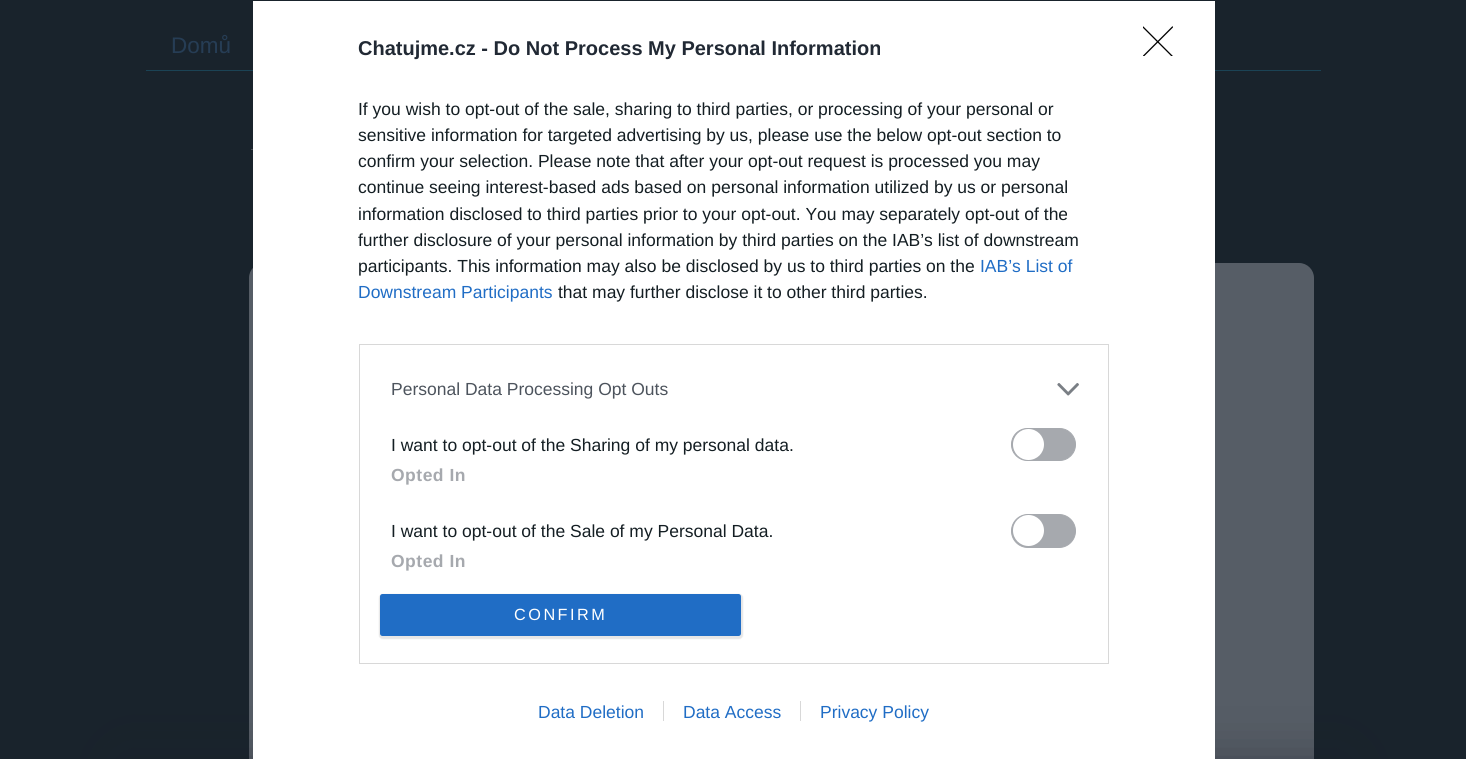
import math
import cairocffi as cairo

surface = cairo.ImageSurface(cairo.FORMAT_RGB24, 1466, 759)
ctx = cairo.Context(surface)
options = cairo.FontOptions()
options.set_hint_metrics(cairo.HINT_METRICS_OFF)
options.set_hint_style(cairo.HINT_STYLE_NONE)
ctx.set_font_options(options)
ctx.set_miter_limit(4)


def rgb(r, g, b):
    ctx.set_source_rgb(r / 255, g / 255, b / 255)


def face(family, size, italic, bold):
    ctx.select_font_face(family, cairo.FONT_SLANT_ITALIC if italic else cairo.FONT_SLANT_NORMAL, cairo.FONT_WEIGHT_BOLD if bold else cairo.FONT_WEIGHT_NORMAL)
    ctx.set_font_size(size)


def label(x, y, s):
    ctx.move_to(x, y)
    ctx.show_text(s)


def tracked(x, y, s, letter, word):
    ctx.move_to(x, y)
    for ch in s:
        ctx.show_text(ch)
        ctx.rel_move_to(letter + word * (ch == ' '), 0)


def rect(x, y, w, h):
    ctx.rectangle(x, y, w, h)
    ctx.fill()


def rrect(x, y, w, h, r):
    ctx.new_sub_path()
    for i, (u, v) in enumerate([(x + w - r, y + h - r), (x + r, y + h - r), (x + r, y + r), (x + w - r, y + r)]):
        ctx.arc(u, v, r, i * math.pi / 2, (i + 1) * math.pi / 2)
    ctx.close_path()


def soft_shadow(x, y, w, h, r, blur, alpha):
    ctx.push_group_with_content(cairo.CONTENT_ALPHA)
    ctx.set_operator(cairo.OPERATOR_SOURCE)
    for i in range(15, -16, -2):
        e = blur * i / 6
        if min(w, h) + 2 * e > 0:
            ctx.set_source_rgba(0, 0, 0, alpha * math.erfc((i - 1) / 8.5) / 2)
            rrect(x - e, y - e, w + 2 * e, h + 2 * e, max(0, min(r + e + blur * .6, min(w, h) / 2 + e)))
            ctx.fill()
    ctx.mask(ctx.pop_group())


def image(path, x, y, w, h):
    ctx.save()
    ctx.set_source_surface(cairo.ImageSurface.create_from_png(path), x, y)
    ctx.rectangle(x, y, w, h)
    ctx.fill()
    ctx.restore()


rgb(25, 35, 44)
ctx.paint()
rgb(27, 67, 85)
rect(146, 70, 1175, 1)
face('Liberation Sans', 22.5, 0, 0)
rgb(38, 61, 85)
label(171, 53, 'Domů')
rgb(73, 79, 87)
rect(251, 149, 2, 1)
rgb(86, 93, 102)
rrect(249, 263, 1065, 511, 15)
ctx.fill()
rgb(25, 31, 39)
soft_shadow(123, 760, 1222, 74, 0, 25, 0.4)
rgb(255, 255, 255)
rect(253, 1, 962, 758)
face('Liberation Sans', 20, 0, 1)
rgb(33, 41, 52)
label(358, 55, 'Chatujme.cz - Do Not Process My Personal Information')
face('Liberation Sans', 17.5, 0, 0)
rgb(20, 30, 35)
label(358, 115, 'If you wish to opt-out of the sale, sharing to third parties, or processing of your personal or')
label(358, 141, 'sensitive information for targeted advertising by us, please use the below opt-out section to')
label(358, 167, 'confirm your selection. Please note that after your opt-out request is processed you may')
label(358, 193, 'continue seeing interest-based ads based on personal information utilized by us or personal')
label(358, 220, 'information disclosed to third parties prior to your opt-out. You may separately opt-out of the')
label(358, 246, 'further disclosure of your personal information by third parties on the IAB’s list of downstream')
label(358, 272, 'participants. This information may also be disclosed by us to third parties on the')
rgb(32, 109, 197)
label(980, 272, 'IAB’s List of')
label(358, 298, 'Downstream Participants')
rgb(20, 30, 35)
label(558, 298, 'that may further disclose it to other third parties.')
ctx.rectangle(359.5, 344.5, 749, 319)
rgb(216, 216, 216)
ctx.set_line_width(1)
ctx.stroke()
rgb(77, 84, 93)
label(391, 395, 'Personal Data Processing Opt Outs')
image('image0.png', 1057, 383, 22, 13)
rgb(20, 30, 35)
label(391, 451, 'I want to opt-out of the Sharing of my personal data.')
rgb(166, 169, 174)
rrect(1011.5, 428.5, 64, 32, 16)
ctx.fill_preserve()
ctx.stroke()
rgb(255, 255, 255)
ctx.arc(1028.5, 444.5, 15.5, 0, 2 * math.pi)
ctx.fill()
face('Liberation Sans', 17.5, 0, 1)
rgb(166, 169, 174)
tracked(391, 481, 'Opted In', 0.5, 0)
face('Liberation Sans', 17.5, 0, 0)
rgb(20, 30, 35)
label(391, 537, 'I want to opt-out of the Sale of my Personal Data.')
rgb(166, 169, 174)
rrect(1011.5, 514.5, 64, 33, 16.5)
ctx.fill_preserve()
ctx.stroke()
rgb(255, 255, 255)
ctx.arc(1028.5, 530.5, 15.5, 0, 2 * math.pi)
ctx.fill()
face('Liberation Sans', 17.5, 0, 1)
rgb(166, 169, 174)
tracked(391, 567, 'Opted In', 0.5, 0)
rgb(0, 0, 0)
soft_shadow(379, 594, 364, 45, 4, 0.5, 0.1)
rgb(32, 109, 197)
rrect(380, 594, 361, 42, 2.5)
ctx.fill()
face('Liberation Sans', 16.25, 0, 0)
rgb(255, 255, 255)
tracked(514, 620, 'CONFIRM', 2.5, 0)
ctx.save()
ctx.rectangle(1143, 26, 30, 30)
ctx.clip()
ctx.new_path()
ctx.move_to(1143, 27)
ctx.line_to(1172.5, 56.5)
ctx.move_to(1172.5, 27)
ctx.line_to(1143, 56.5)
rgb(0, 0, 0)
ctx.set_line_width(1.3)
ctx.set_line_cap(cairo.LINE_CAP_ROUND)
ctx.set_line_join(cairo.LINE_JOIN_ROUND)
ctx.stroke()
ctx.restore()
face('Liberation Sans', 17.5, 0, 0)
rgb(32, 109, 197)
label(538, 718, 'Data Deletion')
label(683, 718, 'Data Access')
rgb(216, 216, 216)
rect(663, 701, 1, 20)
rgb(32, 109, 197)
label(820, 718, 'Privacy Policy')
rgb(216, 216, 216)
rect(800, 701, 1, 20)
surface.write_to_png('render.png')
